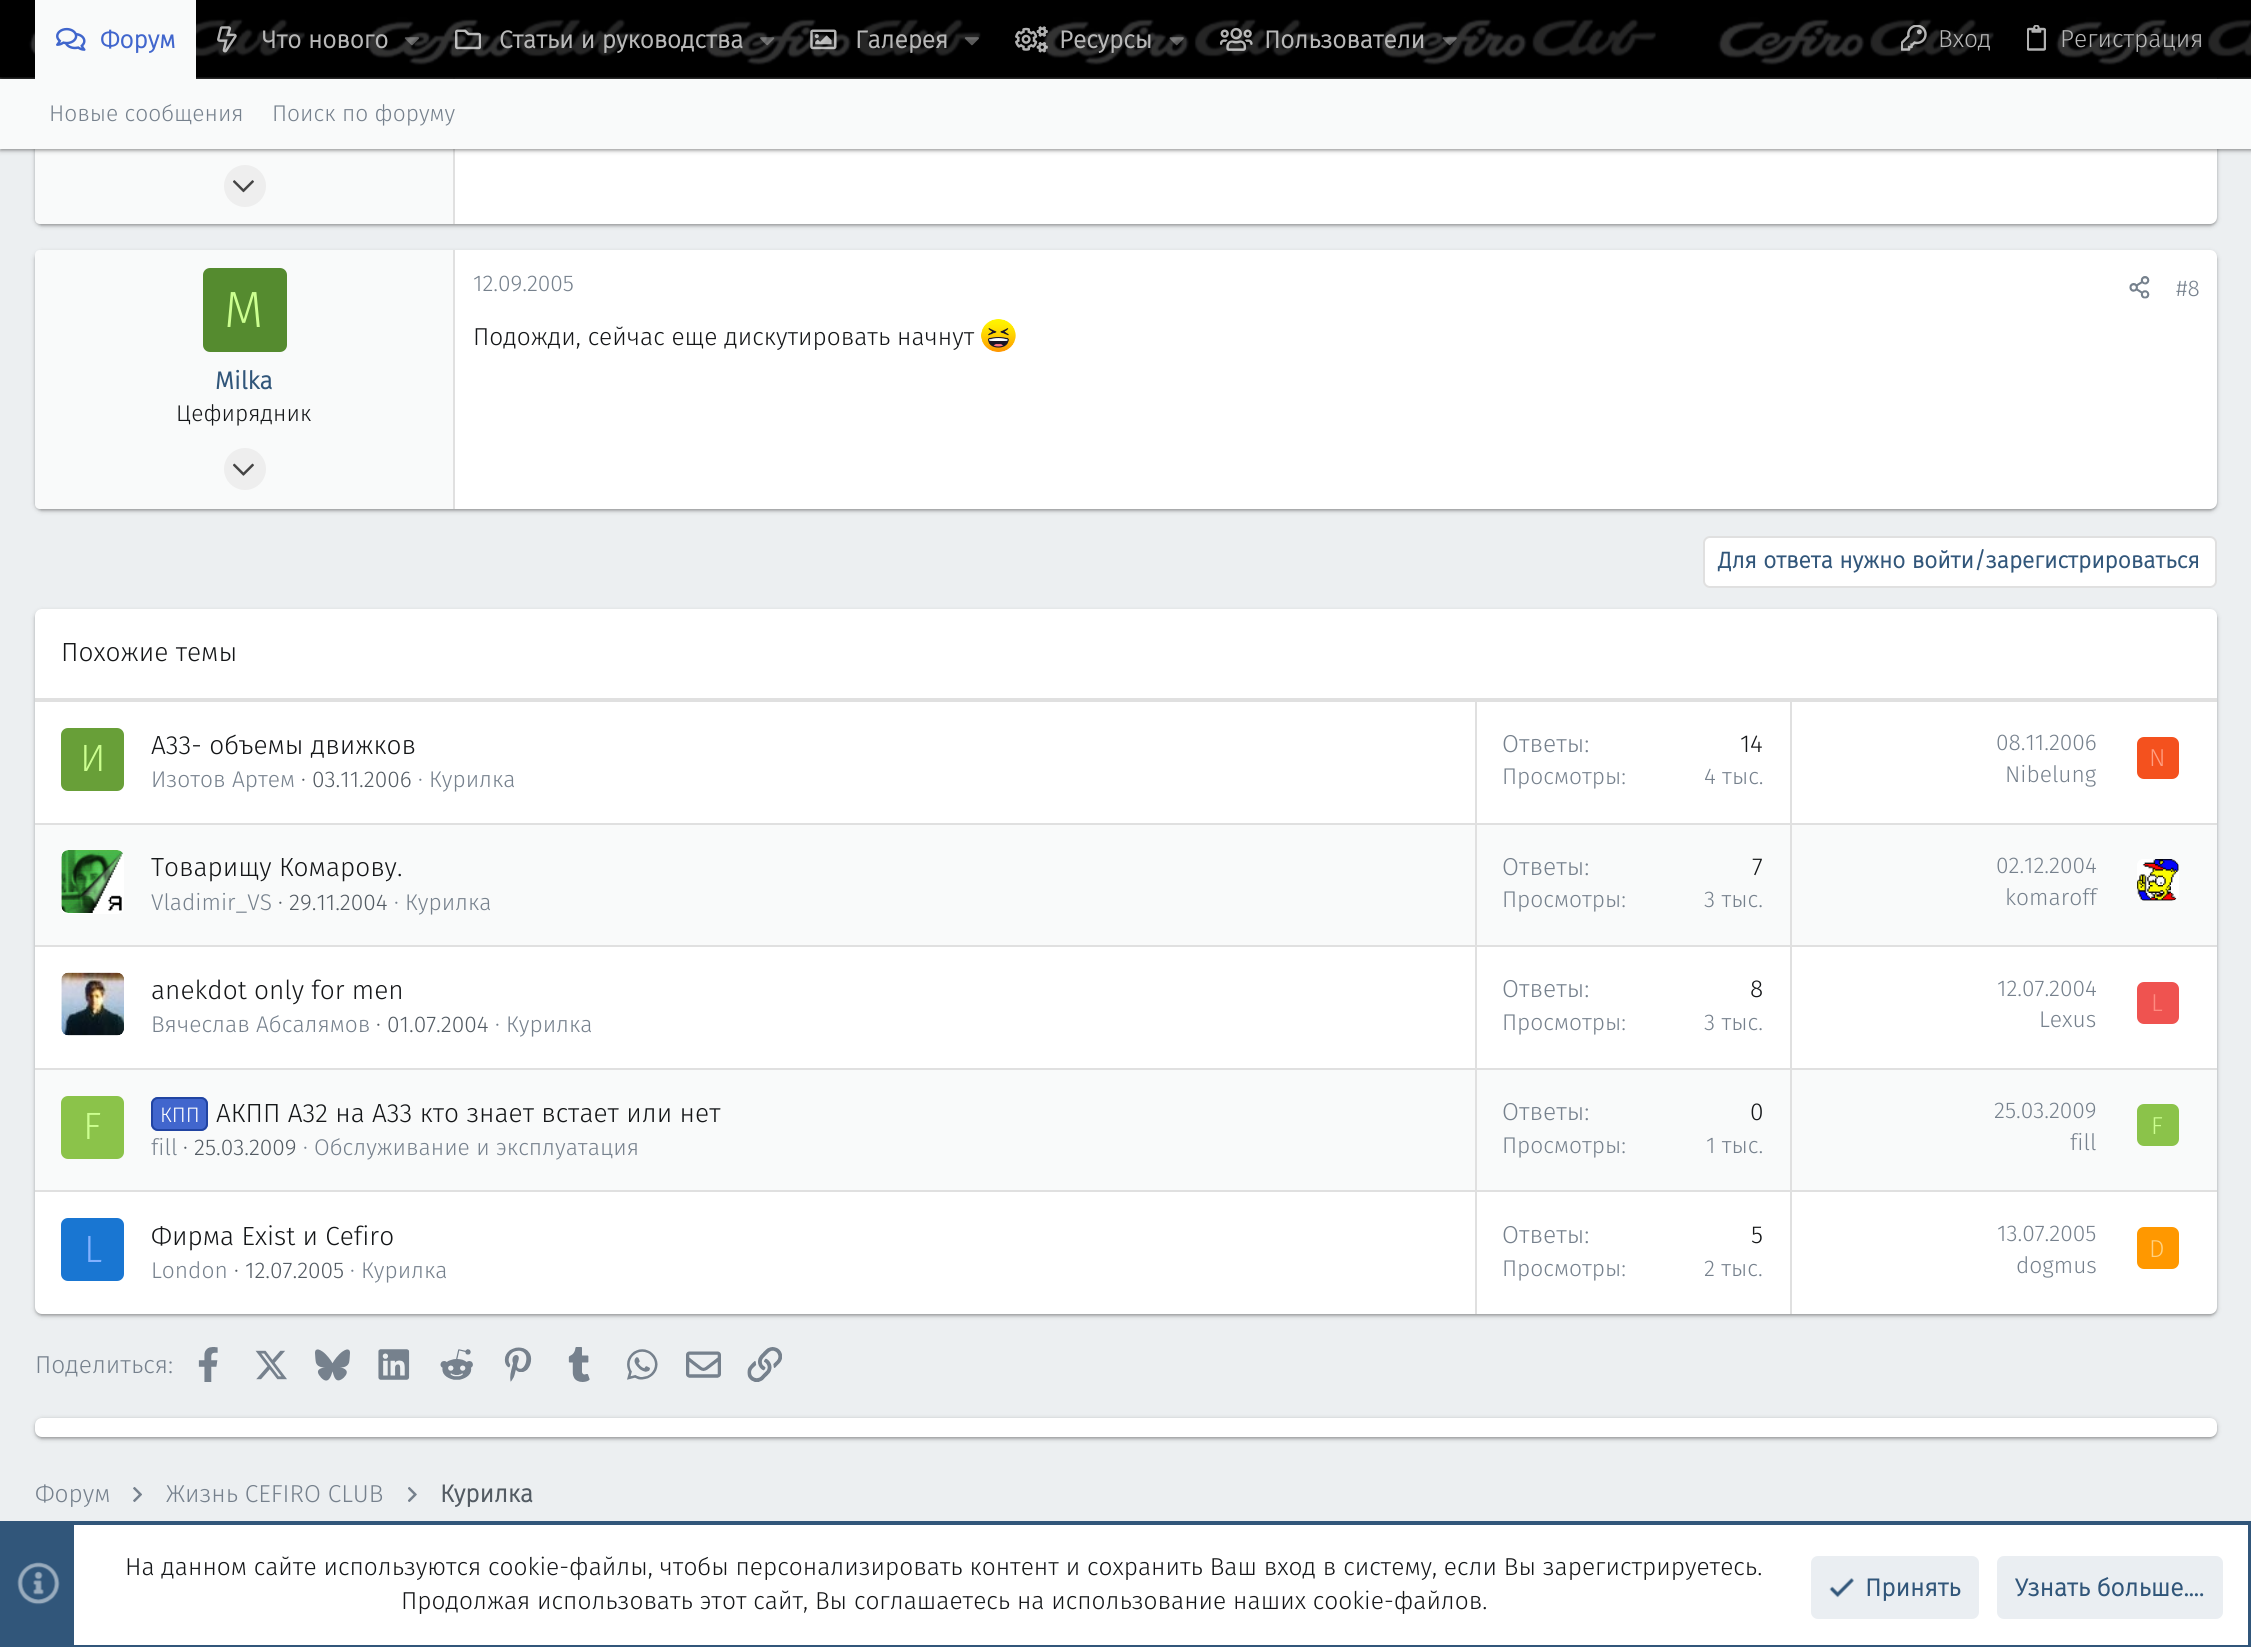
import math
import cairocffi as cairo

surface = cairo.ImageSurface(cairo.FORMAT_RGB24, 2251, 1647)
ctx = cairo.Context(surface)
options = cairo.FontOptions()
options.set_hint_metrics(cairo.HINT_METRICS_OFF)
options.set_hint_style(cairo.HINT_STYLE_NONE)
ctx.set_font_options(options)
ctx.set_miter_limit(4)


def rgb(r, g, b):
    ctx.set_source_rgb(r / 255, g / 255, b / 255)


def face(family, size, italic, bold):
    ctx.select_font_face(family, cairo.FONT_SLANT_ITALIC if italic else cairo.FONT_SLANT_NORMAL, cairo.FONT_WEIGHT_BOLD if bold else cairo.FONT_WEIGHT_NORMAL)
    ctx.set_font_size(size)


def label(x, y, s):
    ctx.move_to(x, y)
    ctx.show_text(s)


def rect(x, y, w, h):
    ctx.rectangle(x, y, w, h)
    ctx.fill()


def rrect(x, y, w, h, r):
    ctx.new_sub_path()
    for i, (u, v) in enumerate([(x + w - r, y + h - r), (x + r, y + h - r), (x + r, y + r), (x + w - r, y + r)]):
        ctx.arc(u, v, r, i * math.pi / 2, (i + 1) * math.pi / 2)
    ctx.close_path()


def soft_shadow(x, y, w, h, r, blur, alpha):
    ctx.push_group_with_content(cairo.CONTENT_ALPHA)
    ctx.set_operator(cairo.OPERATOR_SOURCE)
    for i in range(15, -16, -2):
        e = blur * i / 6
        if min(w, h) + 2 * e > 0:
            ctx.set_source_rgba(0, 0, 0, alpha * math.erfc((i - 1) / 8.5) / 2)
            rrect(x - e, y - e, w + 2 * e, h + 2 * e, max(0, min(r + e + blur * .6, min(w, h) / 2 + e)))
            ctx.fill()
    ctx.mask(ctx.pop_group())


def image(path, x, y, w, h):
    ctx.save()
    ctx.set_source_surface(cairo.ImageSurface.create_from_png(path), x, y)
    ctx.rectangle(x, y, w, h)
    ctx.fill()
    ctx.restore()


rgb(236, 239, 241)
ctx.paint()
rgb(0, 0, 0)
soft_shadow(35, -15, 2182, 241, 7, 2.5, 0.2)
soft_shadow(37, -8, 2179, 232, 5, 1, 0.12)
soft_shadow(35, -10, 2182, 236, 7, 1, 0.14)
rgb(255, 255, 255)
rrect(35, -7, 2182, 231, 7)
ctx.fill()
rgb(249, 250, 250)
ctx.new_path()
ctx.move_to(40, -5)
ctx.line_to(455, -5)
ctx.line_to(455, 224)
ctx.line_to(40, 224)
ctx.curve_to(37, 224, 35, 222, 35, 219)
ctx.line_to(35, 0)
ctx.curve_to(35, -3, 37, -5, 40, -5)
ctx.close_path()
ctx.fill()
rgb(224, 224, 224)
rect(453, 77, 2, 147)
rgb(0, 0, 0)
soft_shadow(0, 2, 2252, 79, 0, 2.5, 0.2)
soft_shadow(2, 4, 2249, 75, 0, 1, 0.12)
soft_shadow(0, 2, 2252, 79, 0, 1, 0.14)
image('image0.png', 0, 0, 2251, 79)
soft_shadow(0, 81, 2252, 70, 0, 2.5, 0.2)
soft_shadow(2, 82, 2249, 67, 0, 1, 0.12)
soft_shadow(0, 81, 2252, 70, 0, 1, 0.14)
rgb(249, 250, 250)
rect(35, 0, 161, 79)
image('image1.png', 56, 27, 30, 24)
face('Fira Sans', 24.5, 0, 1)
rgb(65, 102, 205)
label(100, 48, 'Форум')
image('image2.png', 217, 26, 20, 27)
rgb(184, 184, 184)
label(262, 48, 'Что нового')
image('image3.png', 404, 37, 15, 9)
image('image4.png', 455, 29, 26, 21)
label(499, 48, 'Статьи и руководства')
image('image5.png', 760, 37, 15, 9)
image('image6.png', 810, 29, 27, 21)
label(855, 48, 'Галерея')
image('image7.png', 964, 37, 15, 9)
image('image8.png', 1015, 26, 33, 27)
label(1059, 48, 'Ресурсы')
image('image9.png', 1169, 37, 15, 9)
image('image10.png', 1220, 27, 33, 24)
label(1264, 48, 'Пользователи')
image('image11.png', 1442, 37, 15, 9)
image('image12.png', 1901, 25, 26, 26)
face('Fira Sans Light', 24.5, 0, 0)
label(1938, 47, 'Вход')
image('image13.png', 2027, 25, 19, 26)
label(2060, 47, 'Регистрация')
rgb(249, 250, 250)
rect(0, 79, 2251, 70)
face('Fira Sans Light', 22.75, 0, 0)
rgb(118, 129, 141)
label(49, 121, 'Новые сообщения')
label(272, 121, 'Поиск по форуму')
rgb(238, 238, 238)
ctx.new_path()
ctx.arc(245, 186, 21, 0, 2 * math.pi)
ctx.fill()
image('image14.png', 233, 180, 21, 13)
rgb(0, 0, 0)
soft_shadow(35, 252, 2182, 259, 7, 2.5, 0.2)
soft_shadow(37, 254, 2179, 255, 5, 1, 0.12)
soft_shadow(35, 252, 2182, 259, 7, 1, 0.14)
rgb(255, 255, 255)
rrect(35, 250, 2182, 259, 7)
ctx.fill()
rgb(249, 250, 250)
ctx.new_path()
ctx.move_to(40, 250)
ctx.line_to(455, 250)
ctx.line_to(455, 509)
ctx.line_to(40, 509)
ctx.curve_to(37, 509, 35, 507, 35, 504)
ctx.line_to(35, 255)
ctx.curve_to(35, 252, 37, 250, 40, 250)
ctx.close_path()
ctx.fill()
rgb(224, 224, 224)
rect(453, 250, 2, 259)
rgb(85, 139, 47)
rrect(203, 268, 84, 84, 7)
ctx.fill()
face('Fira Sans Light', 51, 0, 0)
rgb(204, 255, 144)
label(224, 327, 'M')
face('Fira Sans', 24.5, 0, 1)
rgb(49, 86, 122)
label(215, 389, 'Milka')
face('Fira Sans Light', 22.75, 0, 0)
rgb(20, 22, 24)
label(176, 421, 'Цефирядник')
rgb(238, 238, 238)
ctx.new_path()
ctx.arc(245, 469, 21, 0, 2 * math.pi)
ctx.fill()
image('image15.png', 233, 463, 21, 13)
rgb(118, 129, 141)
label(473, 291, '12.09.2005')
image('image16.png', 2129, 276, 21, 23)
label(2176, 296, '#8')
face('Fira Sans Light', 24.5, 0, 0)
rgb(20, 22, 24)
label(473, 345, 'Подожди, сейчас еще дискутировать начнут')
image('image17.png', 981, 319, 35, 33)
rgb(255, 255, 255)
rrect(1704, 537, 512, 50, 6)
ctx.fill_preserve()
rgb(224, 224, 224)
ctx.stroke()
face('Fira Sans', 22.75, 0, 1)
rgb(49, 86, 122)
label(1718, 568, 'Для ответа нужно войти/зарегистрироваться')
rgb(0, 0, 0)
soft_shadow(35, 611, 2182, 705, 7, 2.5, 0.2)
soft_shadow(37, 613, 2179, 701, 5, 1, 0.12)
soft_shadow(35, 611, 2182, 705, 7, 1, 0.14)
rgb(255, 255, 255)
rrect(35, 609, 2182, 705, 7)
ctx.fill()
rgb(224, 224, 224)
rect(35, 698, 2182, 4)
face('Fira Sans Light', 26.25, 0, 0)
rgb(20, 22, 24)
label(61, 661, 'Похожие темы')
rgb(104, 159, 56)
rrect(61, 728, 63, 63, 7)
ctx.fill()
face('Fira Sans Light', 38, 0, 0)
rgb(204, 255, 144)
label(80, 771, 'И')
face('Fira Sans Light', 26.25, 0, 0)
rgb(20, 22, 24)
label(151, 754, 'А33- объемы движков')
face('Fira Sans Light', 22.75, 0, 0)
rgb(118, 129, 141)
label(151, 787, 'Изотов Артем')
rgb(83, 91, 99)
label(301, 787, '· 03.11.2006')
rgb(118, 129, 141)
label(418, 787, '· Курилка')
rgb(224, 224, 224)
rect(1790, 700, 2, 123)
rect(1475, 700, 2, 123)
face('Fira Sans Light', 24.5, 0, 0)
rgb(118, 129, 141)
label(1502, 752, 'Ответы:')
rgb(20, 22, 24)
label(1740, 752, '14')
face('Fira Sans Light', 22.75, 0, 0)
rgb(118, 129, 141)
label(1502, 784, 'Просмотры:')
label(1704, 784, '4 тыс.')
label(1996, 750, '08.11.2006')
label(2005, 782, 'Nibelung')
rgb(244, 81, 30)
rrect(2137, 737, 42, 42, 7)
ctx.fill()
face('Fira Sans Light', 24.5, 0, 0)
rgb(255, 158, 128)
label(2149, 766, 'N')
rgb(249, 250, 250)
rect(35, 825, 2182, 120)
rgb(224, 224, 224)
rect(35, 823, 2182, 2)
rgb(255, 255, 255)
rrect(61, 851, 63, 63, 7)
ctx.fill()
image('image18.png', 61, 850, 62, 63)
face('Fira Sans Light', 26.25, 0, 0)
rgb(20, 22, 24)
label(151, 876, 'Товарищу Комарову.')
face('Fira Sans Light', 22.75, 0, 0)
rgb(118, 129, 141)
label(151, 910, 'Vladimir_VS')
rgb(83, 91, 99)
label(278, 910, '· 29.11.2004')
rgb(118, 129, 141)
label(394, 910, '· Курилка')
rgb(224, 224, 224)
rect(1790, 823, 2, 122)
rect(1475, 823, 2, 122)
face('Fira Sans Light', 24.5, 0, 0)
rgb(118, 129, 141)
label(1502, 875, 'Ответы:')
rgb(20, 22, 24)
label(1752, 875, '7')
face('Fira Sans Light', 22.75, 0, 0)
rgb(118, 129, 141)
label(1502, 907, 'Просмотры:')
label(1704, 907, '3 тыс.')
label(1996, 873, '02.12.2004')
label(2005, 905, 'komaroff')
rgb(255, 255, 255)
rrect(2137, 859, 42, 42, 7)
ctx.fill()
image('image19.png', 2137, 859, 42, 42)
rgb(224, 224, 224)
rect(35, 945, 2182, 2)
image('image20.png', 61, 972, 63, 64)
face('Fira Sans Light', 26.25, 0, 0)
rgb(20, 22, 24)
label(151, 999, 'anekdot only for men')
face('Fira Sans Light', 22.75, 0, 0)
rgb(118, 129, 141)
label(151, 1032, 'Вячеслав Абсалямов')
rgb(83, 91, 99)
label(376, 1032, '· 01.07.2004')
rgb(118, 129, 141)
label(495, 1032, '· Курилка')
rgb(224, 224, 224)
rect(1790, 945, 2, 124)
rect(1475, 945, 2, 124)
face('Fira Sans Light', 24.5, 0, 0)
rgb(118, 129, 141)
label(1502, 997, 'Ответы:')
rgb(20, 22, 24)
label(1750, 997, '8')
face('Fira Sans Light', 22.75, 0, 0)
rgb(118, 129, 141)
label(1502, 1030, 'Просмотры:')
label(1704, 1030, '3 тыс.')
label(1997, 996, '12.07.2004')
label(2039, 1027, 'Lexus')
rgb(239, 83, 80)
rrect(2137, 982, 42, 42, 7)
ctx.fill()
face('Fira Sans Light', 24.5, 0, 0)
rgb(255, 138, 128)
label(2151, 1011, 'L')
rgb(249, 250, 250)
rect(35, 1070, 2182, 120)
rgb(224, 224, 224)
rect(35, 1068, 2182, 2)
rgb(139, 195, 74)
rrect(61, 1096, 63, 63, 7)
ctx.fill()
face('Fira Sans Light', 38, 0, 0)
rgb(204, 255, 144)
label(83, 1139, 'F')
rgb(65, 102, 205)
rrect(151, 1097, 57, 34, 7)
ctx.fill()
rrect(152, 1098, 55, 32, 6)
ctx.set_source_rgba(0.114, 0.247, 0.608, 0.87)
ctx.stroke()
face('Fira Sans Light', 21, 0, 0)
rgb(255, 255, 255)
label(160, 1122, 'КПП')
face('Fira Sans Light', 26.25, 0, 0)
rgb(20, 22, 24)
label(216, 1122, 'АКПП А32 на А33 кто знает встает или нет')
face('Fira Sans Light', 22.75, 0, 0)
rgb(118, 129, 141)
label(151, 1155, 'fill')
rgb(83, 91, 99)
label(183, 1155, '· 25.03.2009')
rgb(118, 129, 141)
label(303, 1155, '· Обслуживание и эксплуатация')
rgb(224, 224, 224)
rect(1790, 1068, 2, 124)
rect(1475, 1068, 2, 124)
face('Fira Sans Light', 24.5, 0, 0)
rgb(118, 129, 141)
label(1502, 1120, 'Ответы:')
rgb(20, 22, 24)
label(1750, 1120, '0')
face('Fira Sans Light', 22.75, 0, 0)
rgb(118, 129, 141)
label(1502, 1153, 'Просмотры:')
label(1706, 1153, '1 тыс.')
label(1994, 1118, '25.03.2009')
label(2070, 1150, 'fill')
rgb(139, 195, 74)
rrect(2137, 1104, 42, 42, 7)
ctx.fill()
face('Fira Sans Light', 24.5, 0, 0)
rgb(204, 255, 144)
label(2151, 1134, 'F')
rgb(224, 224, 224)
rect(35, 1190, 2182, 2)
rgb(25, 118, 210)
rrect(61, 1218, 63, 63, 7)
ctx.fill()
face('Fira Sans Light', 38, 0, 0)
rgb(130, 177, 255)
label(84, 1262, 'L')
face('Fira Sans Light', 26.25, 0, 0)
rgb(20, 22, 24)
label(151, 1245, 'Фирма Exist и Cefiro')
face('Fira Sans Light', 22.75, 0, 0)
rgb(118, 129, 141)
label(151, 1278, 'London')
rgb(83, 91, 99)
label(234, 1278, '· 12.07.2005')
rgb(118, 129, 141)
label(350, 1278, '· Курилка')
rgb(224, 224, 224)
rect(1790, 1190, 2, 124)
rect(1475, 1190, 2, 124)
face('Fira Sans Light', 24.5, 0, 0)
rgb(118, 129, 141)
label(1502, 1243, 'Ответы:')
rgb(20, 22, 24)
label(1751, 1243, '5')
face('Fira Sans Light', 22.75, 0, 0)
rgb(118, 129, 141)
label(1502, 1276, 'Просмотры:')
label(1704, 1276, '2 тыс.')
label(1997, 1241, '13.07.2005')
label(2016, 1273, 'dogmus')
rgb(255, 152, 0)
rrect(2137, 1227, 42, 42, 7)
ctx.fill()
face('Fira Sans Light', 24.5, 0, 0)
rgb(255, 209, 128)
label(2149, 1257, 'D')
rgb(118, 129, 141)
label(35, 1373, 'Поделиться:')
image('image21.png', 198, 1347, 20, 35)
image('image22.png', 255, 1350, 32, 30)
image('image23.png', 315, 1349, 35, 32)
image('image24.png', 378, 1349, 32, 31)
image('image25.png', 440, 1349, 33, 31)
image('image26.png', 504, 1347, 28, 35)
image('image27.png', 568, 1347, 22, 35)
image('image28.png', 627, 1349, 31, 31)
image('image29.png', 686, 1351, 35, 27)
image('image30.png', 747, 1347, 35, 35)
rgb(0, 0, 0)
soft_shadow(35, 1419, 2182, 20, 7, 2.5, 0.2)
soft_shadow(37, 1421, 2179, 16, 5, 1, 0.12)
soft_shadow(35, 1419, 2182, 20, 7, 1, 0.14)
rgb(255, 255, 255)
rrect(35, 1418, 2182, 19, 7)
ctx.fill()
rgb(118, 129, 141)
label(35, 1502, 'Форум')
image('image31.png', 133, 1487, 9, 15)
label(166, 1502, 'Жизнь CEFIRO CLUB')
image('image32.png', 408, 1487, 9, 15)
face('Fira Sans', 24.5, 0, 1)
rgb(83, 91, 99)
label(440, 1502, 'Курилка')
rgb(255, 255, 255)
rect(74, 1525, 2174, 120)
ctx.rectangle(2, 1523, 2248, 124)
rgb(49, 86, 122)
ctx.set_line_width(4)
ctx.stroke()
rect(4, 1525, 70, 120)
image('image33.png', 17, 1562, 43, 43)
face('Fira Sans Light', 24.5, 0, 0)
rgb(20, 22, 24)
label(125, 1575, 'На данном сайте используются cookie-файлы, чтобы персонализировать контент и сохранить Ваш вход в систему, если Вы зарегистрируетесь.')
label(401, 1609, 'Продолжая использовать этот сайт, Вы соглашаетесь на использование наших cookie-файлов.')
rgb(234, 238, 242)
rrect(1811, 1556, 168, 63, 7)
ctx.fill()
image('image34.png', 1829, 1578, 25, 20)
face('Fira Sans', 24.5, 0, 1)
rgb(49, 86, 122)
label(1865, 1596, 'Принять')
rgb(234, 238, 242)
rrect(1997, 1556, 226, 63, 7)
ctx.fill()
rgb(49, 86, 122)
label(2015, 1596, 'Узнать больше....')
surface.write_to_png('render.png')
